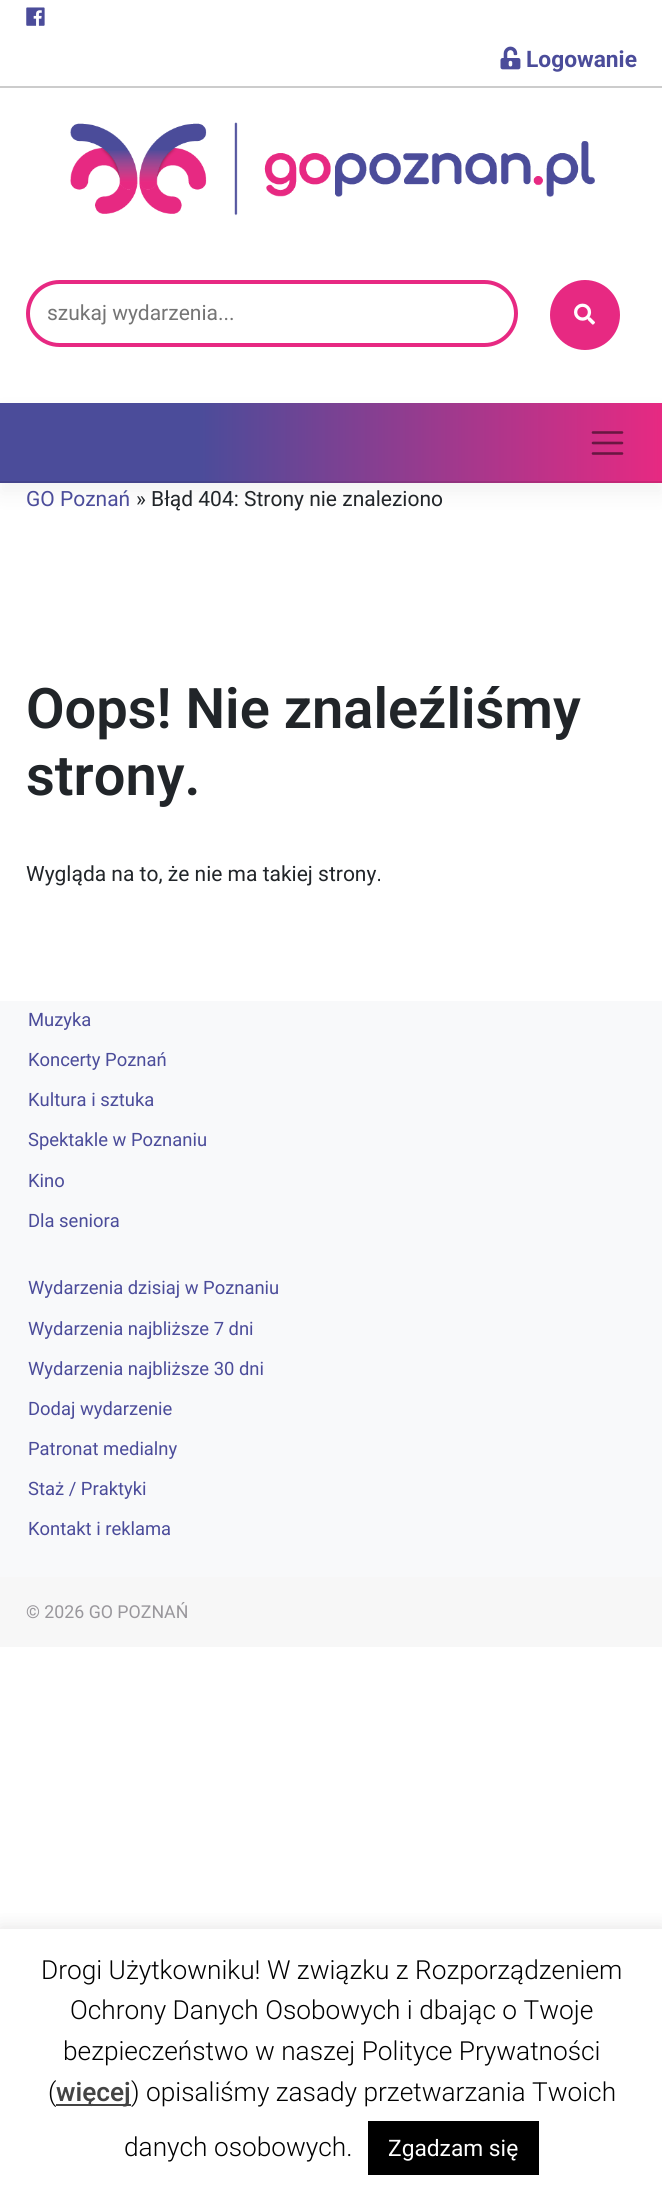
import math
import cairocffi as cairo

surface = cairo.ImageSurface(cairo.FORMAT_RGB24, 662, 2195)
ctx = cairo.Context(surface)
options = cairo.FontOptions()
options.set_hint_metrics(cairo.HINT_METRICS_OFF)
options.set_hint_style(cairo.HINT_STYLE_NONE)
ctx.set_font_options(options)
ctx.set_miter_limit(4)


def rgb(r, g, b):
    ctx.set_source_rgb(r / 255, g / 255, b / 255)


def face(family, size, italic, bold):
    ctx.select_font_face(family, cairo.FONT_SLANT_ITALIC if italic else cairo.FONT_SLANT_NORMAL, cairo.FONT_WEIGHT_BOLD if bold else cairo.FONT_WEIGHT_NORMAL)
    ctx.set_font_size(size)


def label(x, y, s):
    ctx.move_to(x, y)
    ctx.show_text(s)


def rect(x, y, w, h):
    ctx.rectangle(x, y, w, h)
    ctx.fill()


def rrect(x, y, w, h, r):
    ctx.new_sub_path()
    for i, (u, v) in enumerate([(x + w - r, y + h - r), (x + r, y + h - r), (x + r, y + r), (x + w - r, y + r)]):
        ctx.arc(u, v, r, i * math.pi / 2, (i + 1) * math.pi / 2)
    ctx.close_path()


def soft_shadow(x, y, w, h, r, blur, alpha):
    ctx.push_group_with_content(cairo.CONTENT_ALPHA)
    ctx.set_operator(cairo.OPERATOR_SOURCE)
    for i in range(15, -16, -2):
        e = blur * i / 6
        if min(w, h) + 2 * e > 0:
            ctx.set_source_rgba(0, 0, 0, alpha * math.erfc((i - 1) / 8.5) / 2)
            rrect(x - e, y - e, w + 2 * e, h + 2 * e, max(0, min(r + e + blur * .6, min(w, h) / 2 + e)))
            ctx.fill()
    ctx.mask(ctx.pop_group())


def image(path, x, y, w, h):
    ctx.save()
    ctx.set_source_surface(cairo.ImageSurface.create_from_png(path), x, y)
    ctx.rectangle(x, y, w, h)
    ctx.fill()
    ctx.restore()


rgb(255, 255, 255)
ctx.paint()
rgb(204, 204, 204)
rect(0, 86, 662, 2)
image('image0.png', 26, 7, 19, 19)
image('image1.png', 500, 46, 21, 24)
face('Roboto', 22.75, 0, 1)
rgb(75, 76, 154)
label(526, 67, 'Logowanie')
image('image2.png', 70, 122, 525, 94)
rrect(28, 282, 488, 63, 31.5)
rgb(231, 41, 130)
ctx.set_line_width(4)
ctx.stroke()
face('Roboto', 21, 0, 0)
rgb(117, 117, 117)
label(47, 320, 'szukaj wydarzenia...')
rgb(231, 41, 130)
ctx.new_path()
ctx.arc(585, 315, 35, 0, 2 * math.pi)
ctx.fill()
image('image3.png', 574, 303, 21, 22)
rgb(0, 0, 0)
soft_shadow(0, 413, 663, 81, 0, 10.5, 0.05)
gradient = cairo.LinearGradient(0, 443, 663, 443)
gradient.add_color_stop_rgba(0.3, 0.294, 0.298, 0.604, 1)
gradient.add_color_stop_rgba(1, 0.906, 0.161, 0.51, 1)
ctx.set_source(gradient)
rect(0, 403, 662, 78)
gradient = cairo.LinearGradient(0, 443, 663, 443)
gradient.add_color_stop_rgba(0.3, 0.267, 0.267, 0.545, 1)
gradient.add_color_stop_rgba(1, 0.816, 0.145, 0.459, 1)
ctx.set_source(gradient)
rect(0, 481, 662, 2)
ctx.new_path()
ctx.move_to(593, 432.5)
ctx.line_to(622, 432.5)
ctx.move_to(593, 443)
ctx.line_to(622, 443)
ctx.move_to(593, 453.5)
ctx.line_to(622, 453.5)
ctx.set_source_rgba(0, 0, 0, 0.5)
ctx.set_line_width(2.6)
ctx.set_line_cap(cairo.LINE_CAP_ROUND)
ctx.stroke()
rgb(75, 76, 154)
label(26, 506, 'GO Poznań')
rgb(33, 37, 41)
label(136, 506, '» Błąd 404: Strony nie znaleziono')
face('Roboto SemiBold', 56, 0, 0)
label(26, 728, 'Oops! Nie znaleźliśmy')
label(26, 795, 'strony.')
face('Roboto', 21, 0, 0)
label(26, 881, 'Wygląda na to, że nie ma takiej strony.')
rgb(248, 249, 250)
rect(0, 1001, 662, 576)
face('Roboto', 18.4, 0, 0)
rgb(75, 76, 154)
label(28, 1026, 'Muzyka')
label(28, 1066, 'Koncerty Poznań')
label(28, 1106, 'Kultura i sztuka')
label(28, 1146, 'Spektakle w Poznaniu')
label(28, 1187, 'Kino')
label(28, 1227, 'Dla seniora')
label(28, 1294, 'Wydarzenia dzisiaj w Poznaniu')
label(28, 1335, 'Wydarzenia najbliższe 7 dni')
label(28, 1375, 'Wydarzenia najbliższe 30 dni')
label(28, 1415, 'Dodaj wydarzenie')
label(28, 1455, 'Patronat medialny')
label(28, 1495, 'Staż / Praktyki')
label(28, 1535, 'Kontakt i reklama')
rgb(247, 247, 247)
rect(0, 1577, 662, 70)
face('Roboto', 17.75, 0, 0)
rgb(153, 151, 156)
label(26, 1618, '© 2026 GO POZNAŃ')
ctx.save()
ctx.rectangle(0, 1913, 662, 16)
ctx.clip()
rgb(172, 171, 171)
soft_shadow(0, 1927, 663, 268, 0, 9, 0.3)
ctx.restore()
face('Roboto Light', 26.25, 0, 0)
rgb(0, 0, 0)
label(41, 1979, 'Drogi Użytkowniku! W związku z Rozporządzeniem')
label(70, 2019, 'Ochrony Danych Osobowych i dbając o Twoje')
label(63, 2060, 'bezpieczeństwo w naszej Polityce Prywatności')
label(48, 2101, '(')
rgb(68, 68, 68)
rect(56, 2104, 75, 2)
face('Roboto Medium', 26.25, 0, 0)
label(56, 2101, 'więcej')
face('Roboto Light', 26.25, 0, 0)
rgb(0, 0, 0)
label(131, 2101, ') opisaliśmy zasady przetwarzania Twoich')
label(124, 2156, 'danych osobowych.')
rect(368, 2121, 171, 54)
face('Roboto', 22.75, 0, 0)
rgb(255, 255, 255)
label(388, 2156, 'Zgadzam się')
surface.write_to_png('render.png')
